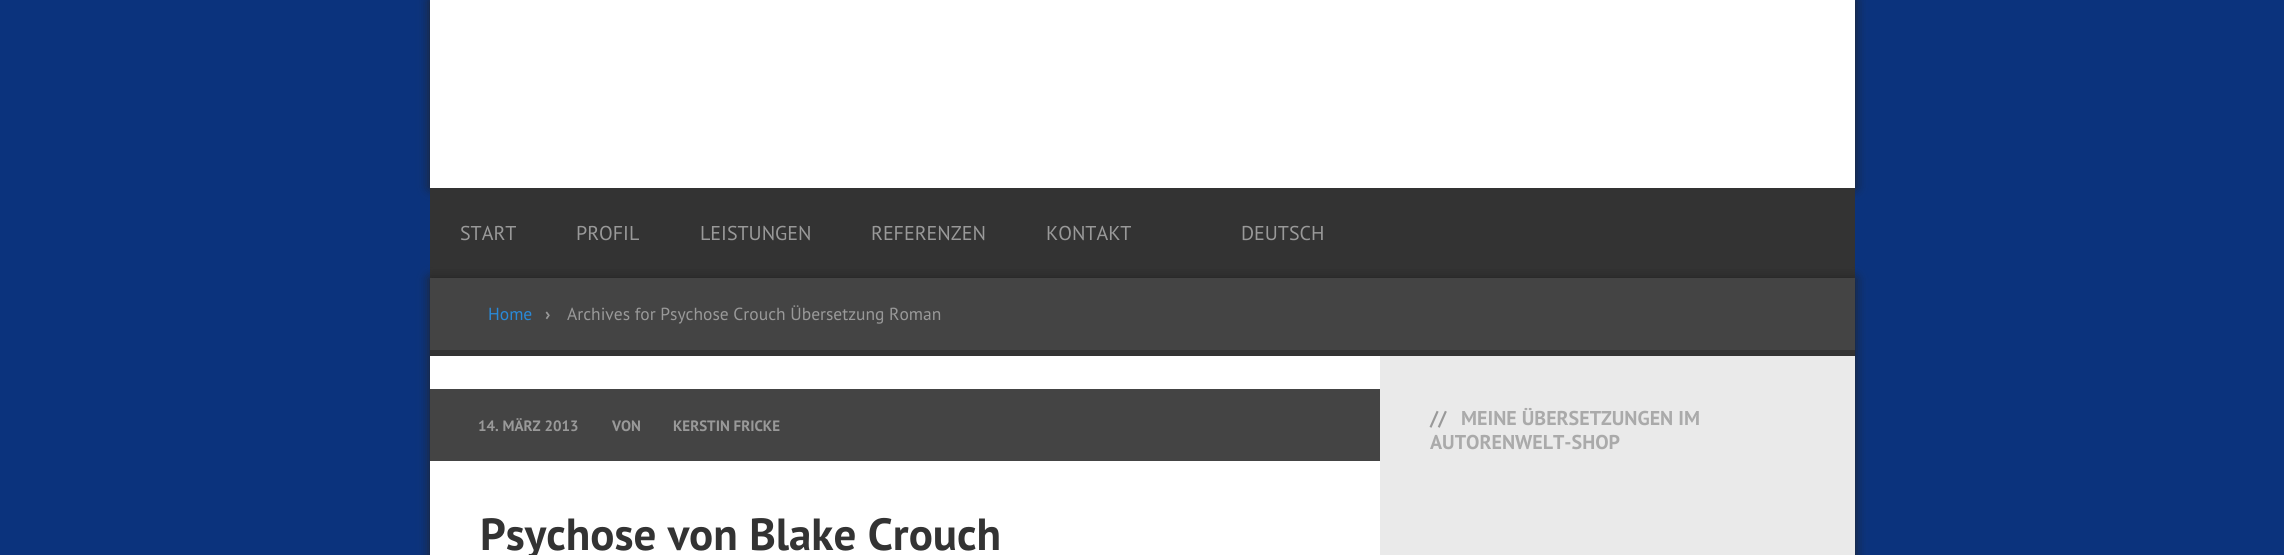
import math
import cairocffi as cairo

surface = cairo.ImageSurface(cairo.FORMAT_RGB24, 2284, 555)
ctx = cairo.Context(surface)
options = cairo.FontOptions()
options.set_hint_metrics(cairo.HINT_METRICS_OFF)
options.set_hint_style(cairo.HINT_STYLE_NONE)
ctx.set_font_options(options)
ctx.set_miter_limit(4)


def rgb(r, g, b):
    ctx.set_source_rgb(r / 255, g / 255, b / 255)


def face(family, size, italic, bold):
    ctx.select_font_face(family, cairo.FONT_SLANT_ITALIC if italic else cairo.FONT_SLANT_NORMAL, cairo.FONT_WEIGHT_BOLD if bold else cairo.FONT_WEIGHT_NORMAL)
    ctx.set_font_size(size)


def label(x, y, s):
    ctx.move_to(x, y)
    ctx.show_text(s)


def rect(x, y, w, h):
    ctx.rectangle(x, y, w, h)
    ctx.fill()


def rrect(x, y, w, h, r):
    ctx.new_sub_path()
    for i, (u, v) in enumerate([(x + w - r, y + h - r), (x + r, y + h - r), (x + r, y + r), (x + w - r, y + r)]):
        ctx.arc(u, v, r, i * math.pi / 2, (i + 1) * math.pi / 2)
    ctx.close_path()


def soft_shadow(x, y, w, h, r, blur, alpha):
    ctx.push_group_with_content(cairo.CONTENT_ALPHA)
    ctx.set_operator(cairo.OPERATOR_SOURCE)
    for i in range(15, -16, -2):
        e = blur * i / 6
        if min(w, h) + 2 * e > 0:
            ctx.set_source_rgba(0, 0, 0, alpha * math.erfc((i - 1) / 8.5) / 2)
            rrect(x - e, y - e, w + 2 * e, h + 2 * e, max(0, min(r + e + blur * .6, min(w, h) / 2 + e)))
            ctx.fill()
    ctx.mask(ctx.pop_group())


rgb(11, 51, 125)
ctx.paint()
rgb(34, 34, 34)
soft_shadow(430, 0, 1425, 188, 0, 6, 1)
rgb(255, 255, 255)
rect(430, 0, 1425, 188)
rgb(51, 51, 51)
rect(430, 188, 1425, 90)
face('PT Sans', 20, 0, 0)
rgb(153, 153, 153)
label(460, 240, 'START')
label(576, 240, 'PROFIL')
label(700, 240, 'LEISTUNGEN')
label(871, 240, 'REFERENZEN')
label(1046, 240, 'KONTAKT')
label(1241, 240, 'DEUTSCH')
rgb(34, 34, 34)
soft_shadow(430, 278, 1425, 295, 0, 6, 1)
rgb(68, 68, 68)
rect(430, 278, 1425, 72)
rgb(51, 51, 51)
rect(430, 350, 1425, 6)
face('PT Sans', 17.5, 0, 0)
rgb(41, 137, 216)
label(488, 320, 'Home')
face('PT Sans', 17.5, 0, 1)
rgb(153, 153, 153)
label(545, 320, '›')
face('PT Sans', 17.5, 0, 0)
label(567, 320, 'Archives for Psychose Crouch Übersetzung Roman')
rgb(255, 255, 255)
rect(430, 356, 950, 199)
rgb(68, 68, 68)
rect(430, 389, 950, 72)
face('PT Sans', 15, 0, 1)
rgb(153, 153, 153)
label(478, 431, '14. MÄRZ 2013')
label(612, 431, 'VON')
label(673, 431, 'KERSTIN FRICKE')
face('PT Sans', 45, 0, 1)
rgb(51, 51, 51)
label(480, 550, 'Psychose von Blake Crouch')
rgb(234, 234, 234)
rect(1380, 356, 475, 199)
face('PT Sans', 20, 0, 1)
rgb(153, 153, 153)
label(1430, 425, '//')
rgb(170, 170, 170)
label(1461, 425, 'MEINE ÜBERSETZUNGEN IM')
label(1430, 449, 'AUTORENWELT-SHOP')
surface.write_to_png('render.png')
